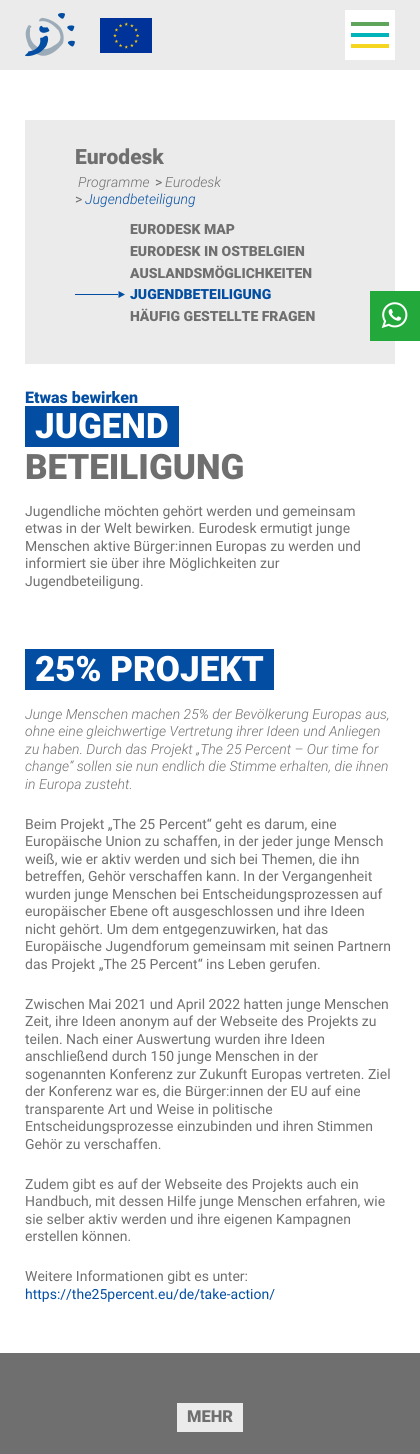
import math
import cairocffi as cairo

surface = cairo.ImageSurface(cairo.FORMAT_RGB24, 420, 1454)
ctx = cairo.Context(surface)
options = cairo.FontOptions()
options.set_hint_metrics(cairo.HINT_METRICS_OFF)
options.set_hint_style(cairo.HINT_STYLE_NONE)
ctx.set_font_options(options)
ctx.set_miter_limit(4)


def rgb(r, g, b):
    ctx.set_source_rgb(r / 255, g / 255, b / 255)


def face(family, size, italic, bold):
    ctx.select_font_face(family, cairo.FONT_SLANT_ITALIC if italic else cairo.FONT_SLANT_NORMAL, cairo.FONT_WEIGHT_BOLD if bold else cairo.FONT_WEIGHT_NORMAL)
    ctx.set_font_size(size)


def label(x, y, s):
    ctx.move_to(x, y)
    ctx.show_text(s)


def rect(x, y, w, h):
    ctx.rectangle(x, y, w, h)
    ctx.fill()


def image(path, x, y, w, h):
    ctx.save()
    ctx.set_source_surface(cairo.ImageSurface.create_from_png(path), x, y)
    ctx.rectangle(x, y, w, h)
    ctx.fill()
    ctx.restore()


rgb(255, 255, 255)
ctx.paint()
rgb(235, 235, 235)
rect(0, 0, 420, 70)
image('image0.png', 25, 13, 50, 44)
image('image1.png', 100, 18, 52, 35)
rgb(255, 255, 255)
rect(345, 10, 50, 50)
rgb(95, 166, 90)
rect(351, 22, 38, 4)
rgb(1, 179, 187)
rect(351, 33, 38, 4)
rgb(245, 213, 30)
rect(351, 44, 38, 4)
rgb(235, 235, 235)
rect(25, 120, 370, 244)
face('Roboto Black', 21, 0, 0)
rgb(111, 111, 111)
label(75, 164, 'Eurodesk')
face('Roboto Light', 14, 1, 0)
label(78, 187, 'Programme')
face('Roboto', 14, 0, 0)
label(155, 187, '>')
face('Roboto Light', 14, 1, 0)
label(165, 187, 'Eurodesk')
face('Roboto', 14, 0, 0)
label(75, 204, '>')
face('Roboto Light', 14, 1, 0)
rgb(3, 78, 162)
label(85, 204, 'Jugendbeteiligung')
face('Roboto Black', 14, 0, 0)
rgb(111, 111, 111)
label(130, 234, 'EURODESK MAP')
label(130, 256, 'EURODESK IN OSTBELGIEN')
label(130, 278, 'AUSLANDSMÖGLICHKEITEN')
rgb(3, 78, 162)
rect(75, 294, 43, 1)
ctx.new_path()
ctx.move_to(118.5, 291)
ctx.line_to(118.5, 298)
ctx.line_to(125, 294.5)
ctx.close_path()
ctx.fill()
label(130, 299, 'JUGENDBETEILIGUNG')
rgb(111, 111, 111)
label(130, 321, 'HÄUFIG GESTELLTE FRAGEN')
face('Roboto Black', 16, 0, 0)
rgb(3, 78, 162)
label(25, 403, 'Etwas bewirken')
rect(25, 406, 154, 41)
face('Roboto Black', 35, 0, 0)
rgb(255, 255, 255)
label(35, 438, 'JUGEND')
rgb(111, 111, 111)
label(25, 479, 'BETEILIGUNG')
face('Roboto', 14, 0, 0)
label(25, 516, 'Jugendliche möchten gehört werden und gemeinsam')
label(25, 533, 'etwas in der Welt bewirken. Eurodesk ermutigt junge')
label(25, 551, 'Menschen aktive Bürger:innen Europas zu werden und')
label(25, 568, 'informiert sie über ihre Möglichkeiten zur')
label(25, 586, 'Jugendbeteiligung.')
rgb(3, 78, 162)
rect(25, 649, 249, 41)
face('Roboto Black', 35, 0, 0)
rgb(255, 255, 255)
label(35, 681, '25% PROJEKT')
face('Roboto Light', 14, 1, 0)
rgb(111, 111, 111)
label(25, 719, 'Junge Menschen machen 25% der Bevölkerung Europas aus,')
label(25, 736, 'ohne eine gleichwertige Vertretung ihrer Ideen und Anliegen')
label(25, 754, 'zu haben. Durch das Projekt „The 25 Percent – Our time for')
label(25, 771, 'change“ sollen sie nun endlich die Stimme erhalten, die ihnen')
label(25, 789, 'in Europa zusteht.')
face('Roboto', 14, 0, 0)
label(25, 829, 'Beim Projekt „The 25 Percent“ geht es darum, eine')
label(25, 846, 'Europäische Union zu schaffen, in der jeder junge Mensch')
label(25, 864, 'weiß, wie er aktiv werden und sich bei Themen, die ihn')
label(25, 881, 'betreffen, Gehör verschaffen kann. In der Vergangenheit')
label(25, 899, 'wurden junge Menschen bei Entscheidungsprozessen auf')
label(25, 916, 'europäischer Ebene oft ausgeschlossen und ihre Ideen')
label(25, 934, 'nicht gehört. Um dem entgegenzuwirken, hat das')
label(25, 951, 'Europäische Jugendforum gemeinsam mit seinen Partnern')
label(25, 969, 'das Projekt „The 25 Percent“ ins Leben gerufen.')
label(25, 1009, 'Zwischen Mai 2021 und April 2022 hatten junge Menschen')
label(25, 1026, 'Zeit, ihre Ideen anonym auf der Webseite des Projekts zu')
label(25, 1044, 'teilen. Nach einer Auswertung wurden ihre Ideen')
label(25, 1061, 'anschließend durch 150 junge Menschen in der')
label(25, 1079, 'sogenannten Konferenz zur Zukunft Europas vertreten. Ziel')
label(25, 1096, 'der Konferenz war es, die Bürger:innen der EU auf eine')
label(25, 1114, 'transparente Art und Weise in politische')
label(25, 1131, 'Entscheidungsprozesse einzubinden und ihren Stimmen')
label(25, 1149, 'Gehör zu verschaffen.')
label(25, 1189, 'Zudem gibt es auf der Webseite des Projekts auch ein')
label(25, 1206, 'Handbuch, mit dessen Hilfe junge Menschen erfahren, wie')
label(25, 1224, 'sie selber aktiv werden und ihre eigenen Kampagnen')
label(25, 1241, 'erstellen können.')
label(25, 1281, 'Weitere Informationen gibt es unter:')
rgb(3, 78, 162)
label(25, 1299, 'https://the25percent.eu/de/take-action/')
rgb(111, 111, 111)
rect(0, 1353, 420, 101)
image('image2.png', 370, 291, 50, 50)
rgb(235, 235, 235)
rect(177, 1403, 66, 29)
face('Roboto Black', 16.5, 0, 0)
rgb(111, 111, 111)
label(187, 1422, 'MEHR')
surface.write_to_png('render.png')
